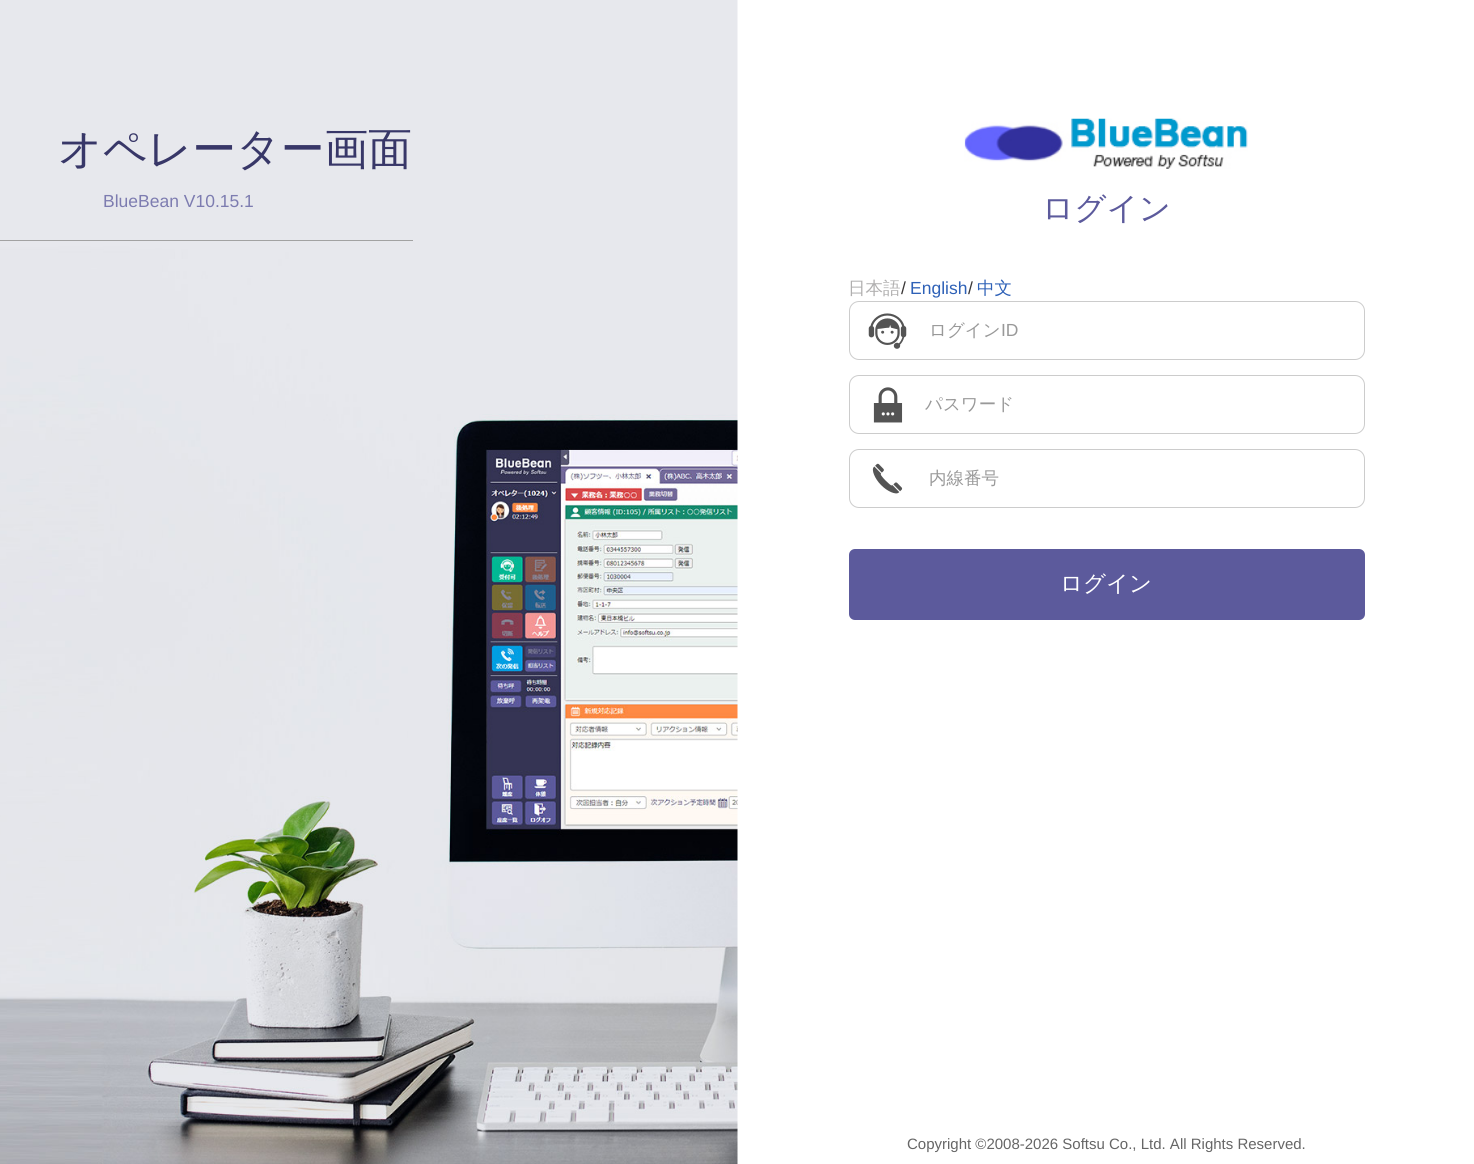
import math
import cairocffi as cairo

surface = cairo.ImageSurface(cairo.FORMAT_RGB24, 1474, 1164)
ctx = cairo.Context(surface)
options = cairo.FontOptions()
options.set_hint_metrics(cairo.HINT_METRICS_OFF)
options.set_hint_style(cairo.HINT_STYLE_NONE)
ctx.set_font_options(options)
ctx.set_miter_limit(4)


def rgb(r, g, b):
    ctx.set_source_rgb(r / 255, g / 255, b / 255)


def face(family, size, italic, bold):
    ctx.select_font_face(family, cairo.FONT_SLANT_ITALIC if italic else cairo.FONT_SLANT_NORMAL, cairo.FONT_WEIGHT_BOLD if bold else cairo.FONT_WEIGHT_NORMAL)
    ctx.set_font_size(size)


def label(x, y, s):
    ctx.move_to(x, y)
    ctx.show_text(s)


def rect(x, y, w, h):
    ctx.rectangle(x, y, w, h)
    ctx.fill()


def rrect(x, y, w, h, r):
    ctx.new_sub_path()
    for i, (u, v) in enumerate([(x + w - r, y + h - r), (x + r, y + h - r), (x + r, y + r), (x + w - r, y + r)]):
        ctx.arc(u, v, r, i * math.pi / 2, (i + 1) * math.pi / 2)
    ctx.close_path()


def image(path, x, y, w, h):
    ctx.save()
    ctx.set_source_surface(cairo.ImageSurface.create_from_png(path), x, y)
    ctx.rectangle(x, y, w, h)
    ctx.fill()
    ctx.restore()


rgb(255, 255, 255)
ctx.paint()
image('image0.png', 0, 0, 738, 1164)
rgb(162, 162, 162)
rect(0, 240, 413, 1)
face('WenQuanYi Zen Hei Medium', 43.75, 0, 0)
rgb(56, 55, 104)
label(58, 164, 'オペレーター画面')
face('Liberation Sans', 17.5, 0, 0)
rgb(125, 124, 176)
label(103, 207, 'BlueBean V10.15.1')
image('image1.png', 964, 118, 284, 51)
face('WenQuanYi Zen Hei Medium', 31.5, 0, 0)
rgb(92, 90, 156)
label(1042, 219, 'ログイン')
face('Liberation Sans', 17.5, 0, 0)
rgb(58, 55, 55)
label(901, 294, '/')
face('WenQuanYi Zen Hei Medium', 17.5, 0, 0)
rgb(176, 175, 175)
label(848, 294, '日本語')
face('Liberation Sans', 17.5, 0, 0)
rgb(46, 97, 183)
label(910, 294, 'English')
rgb(58, 55, 55)
label(968, 294, '/')
face('WenQuanYi Zen Hei Medium', 17.5, 0, 0)
rgb(46, 97, 183)
label(977, 294, '中文')
rrect(849.5, 301.5, 515, 58, 9.5)
rgb(204, 204, 204)
ctx.set_line_width(1)
ctx.stroke()
image('image2.png', 868, 313, 39, 36)
rgb(153, 153, 153)
label(929, 336, 'ログイン')
face('Liberation Sans', 17.5, 0, 0)
label(1001, 336, 'ID')
rrect(849.5, 375.5, 515, 58, 9.5)
rgb(204, 204, 204)
ctx.stroke()
image('image3.png', 873, 387, 30, 36)
face('WenQuanYi Zen Hei Medium', 17.5, 0, 0)
rgb(153, 153, 153)
label(925, 410, 'パスワード')
rrect(849.5, 449.5, 515, 58, 9.5)
rgb(204, 204, 204)
ctx.stroke()
image('image4.png', 872, 463, 31, 31)
rgb(153, 153, 153)
label(929, 484, '内線番号')
rgb(92, 90, 156)
rrect(849, 549, 516, 71, 6)
ctx.fill()
face('WenQuanYi Zen Hei Medium', 22.5, 0, 0)
rgb(255, 255, 255)
label(1060, 591, 'ログイン')
face('Liberation Sans', 15, 0, 0)
rgb(102, 102, 102)
label(907, 1149, 'Copyright ©2008-2026 Softsu Co., Ltd. All Rights Reserved.')
surface.write_to_png('render.png')
